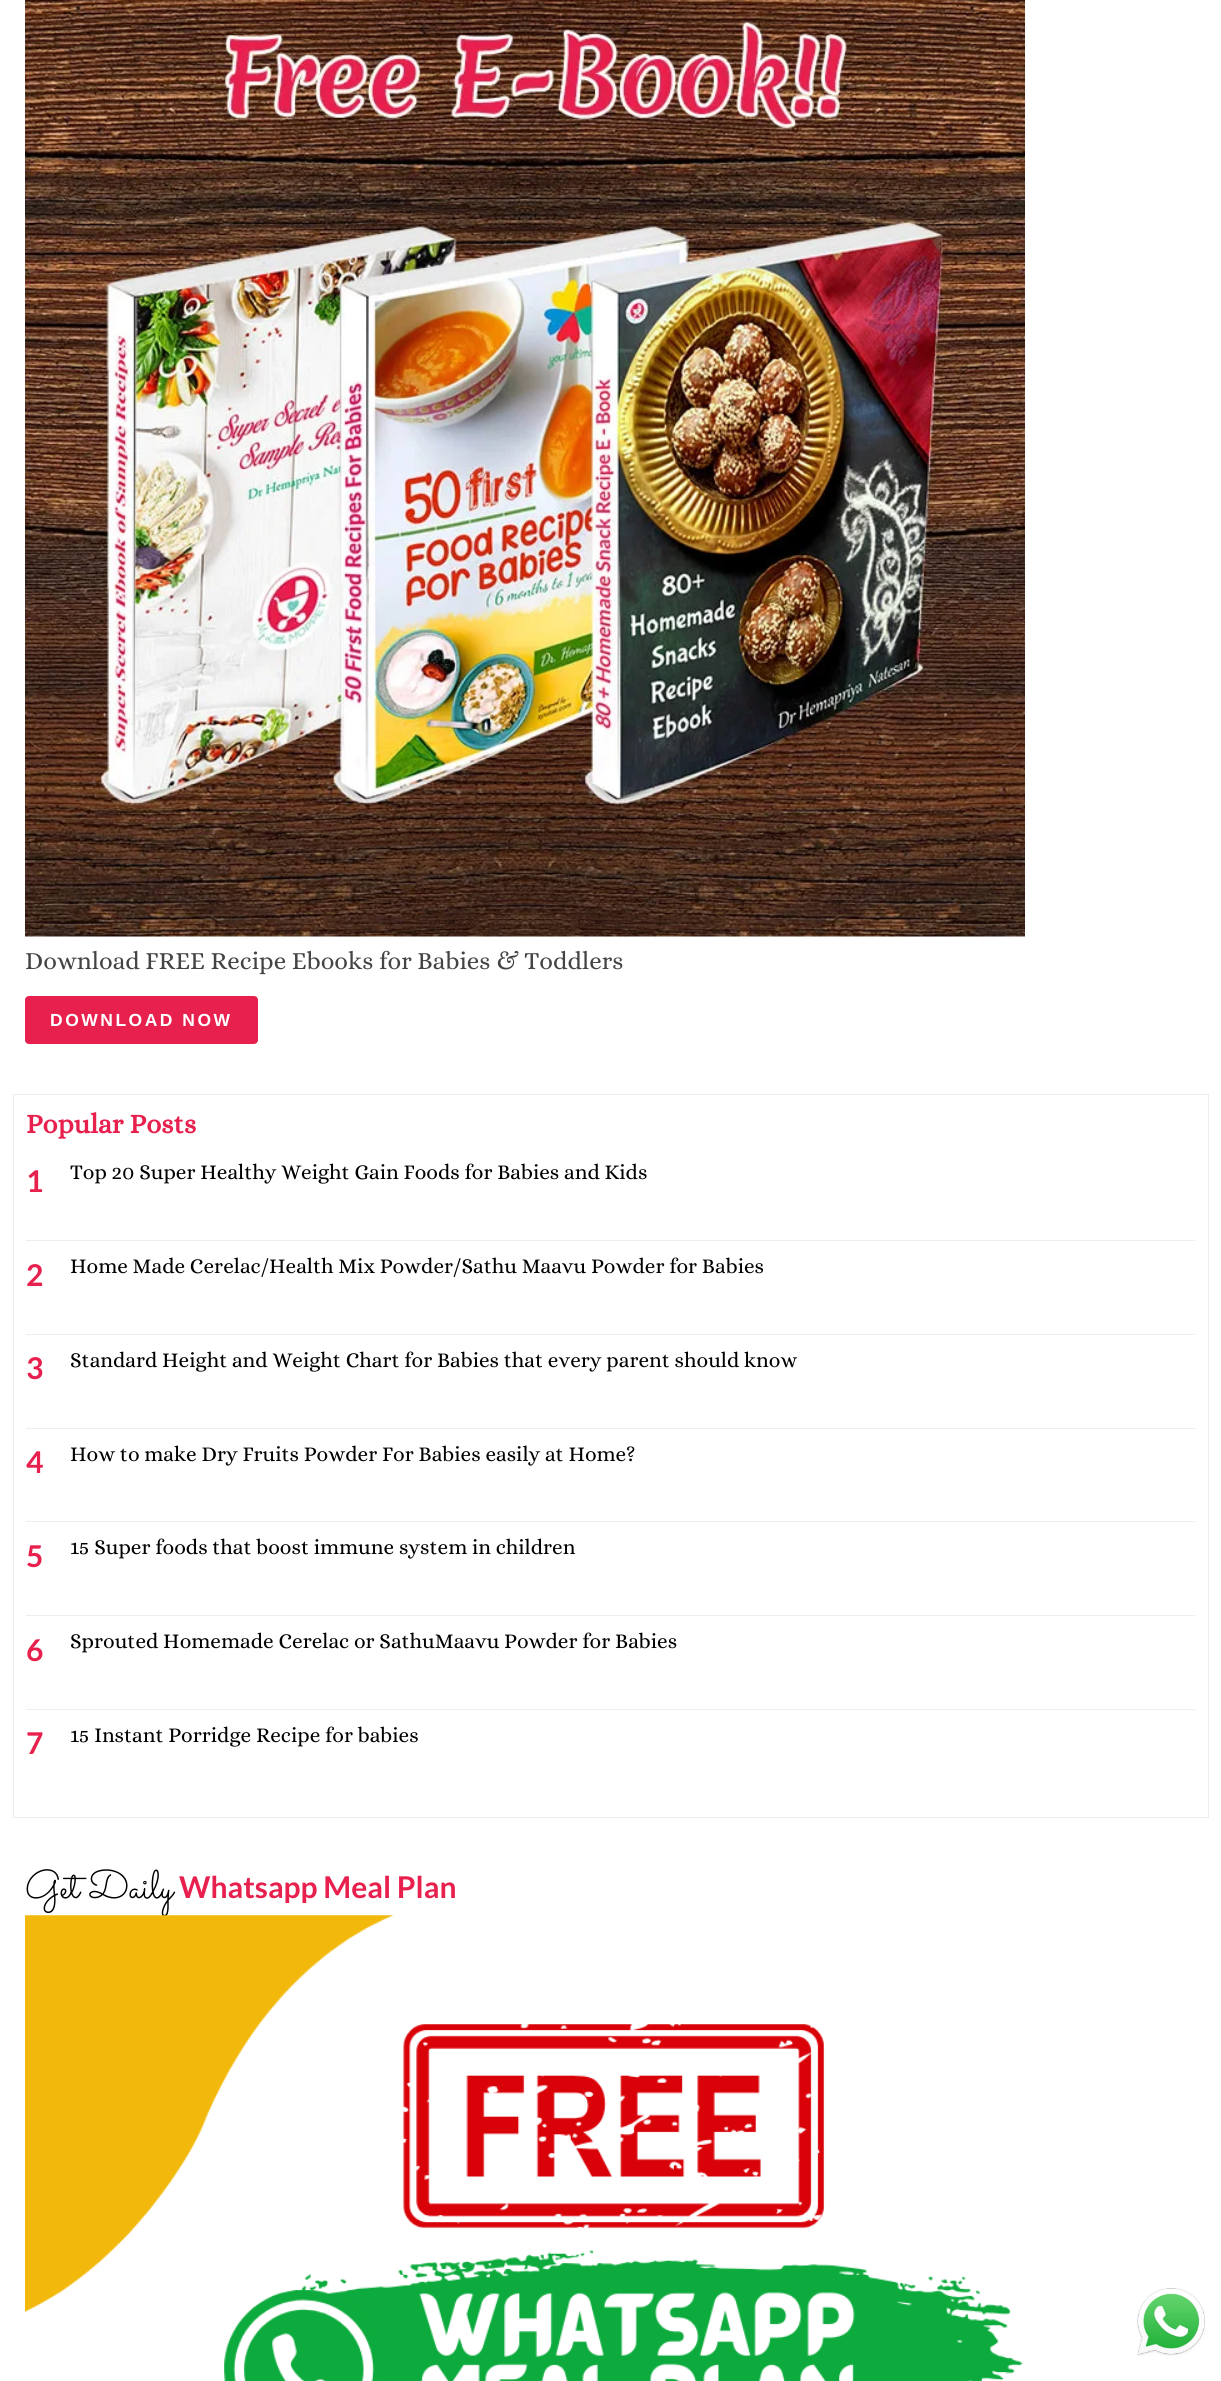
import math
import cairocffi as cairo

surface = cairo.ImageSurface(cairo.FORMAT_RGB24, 1221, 2381)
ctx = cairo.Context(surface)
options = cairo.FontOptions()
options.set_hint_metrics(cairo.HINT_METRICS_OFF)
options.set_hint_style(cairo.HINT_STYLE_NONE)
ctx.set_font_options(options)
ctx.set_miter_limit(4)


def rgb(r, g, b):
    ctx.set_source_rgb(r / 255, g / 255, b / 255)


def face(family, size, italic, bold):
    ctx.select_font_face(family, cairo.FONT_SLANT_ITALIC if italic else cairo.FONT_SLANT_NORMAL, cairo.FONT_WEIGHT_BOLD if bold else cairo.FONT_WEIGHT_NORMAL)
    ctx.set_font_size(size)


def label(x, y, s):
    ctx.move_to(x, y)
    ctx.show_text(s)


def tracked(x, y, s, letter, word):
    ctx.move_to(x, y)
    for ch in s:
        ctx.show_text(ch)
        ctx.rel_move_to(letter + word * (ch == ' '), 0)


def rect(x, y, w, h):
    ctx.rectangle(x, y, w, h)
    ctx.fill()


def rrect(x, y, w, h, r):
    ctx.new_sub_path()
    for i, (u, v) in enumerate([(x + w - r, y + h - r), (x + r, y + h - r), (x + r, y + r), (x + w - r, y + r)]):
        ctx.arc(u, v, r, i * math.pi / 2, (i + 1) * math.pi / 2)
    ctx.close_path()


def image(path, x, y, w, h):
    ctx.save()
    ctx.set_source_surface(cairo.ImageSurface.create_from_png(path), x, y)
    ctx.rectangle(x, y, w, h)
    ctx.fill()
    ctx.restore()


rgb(255, 255, 255)
ctx.paint()
image('image0.png', 25, 0, 1000, 937)
face('Alice', 25, 0, 0)
rgb(68, 68, 68)
label(25, 969, 'Download FREE Recipe Ebooks for Babies & Toddlers')
rgb(231, 32, 78)
rrect(25, 996, 233, 48, 4)
ctx.fill()
face('Liberation Sans', 17.5, 0, 1)
rgb(255, 255, 255)
tracked(50, 1026, 'DOWNLOAD NOW', 2.5, 0)
ctx.rectangle(13.5, 1094.5, 1195, 723)
rgb(238, 238, 238)
ctx.set_line_width(1)
ctx.stroke()
face('Alice', 27.5, 0, 1)
rgb(231, 32, 78)
label(26, 1133, 'Popular Posts')
rgb(238, 238, 238)
rect(26, 1240, 1169, 1)
face('Lato', 30, 0, 1)
rgb(231, 32, 78)
label(26, 1192, '1')
face('Alice', 21.25, 0, 0)
rgb(0, 0, 0)
label(70, 1179, 'Top 20 Super Healthy Weight Gain Foods for Babies and Kids')
rgb(238, 238, 238)
rect(26, 1334, 1169, 1)
face('Lato', 30, 0, 1)
rgb(231, 32, 78)
label(26, 1286, '2')
face('Alice', 21.25, 0, 0)
rgb(0, 0, 0)
label(70, 1273, 'Home Made Cerelac/Health Mix Powder/Sathu Maavu Powder for Babies')
rgb(238, 238, 238)
rect(26, 1428, 1169, 1)
face('Lato', 30, 0, 1)
rgb(231, 32, 78)
label(26, 1379, '3')
face('Alice', 21.25, 0, 0)
rgb(0, 0, 0)
label(70, 1367, 'Standard Height and Weight Chart for Babies that every parent should know')
rgb(238, 238, 238)
rect(26, 1521, 1169, 1)
face('Lato', 30, 0, 1)
rgb(231, 32, 78)
label(26, 1473, '4')
face('Alice', 21.25, 0, 0)
rgb(0, 0, 0)
label(70, 1461, 'How to make Dry Fruits Powder For Babies easily at Home?')
rgb(238, 238, 238)
rect(26, 1615, 1169, 1)
face('Lato', 30, 0, 1)
rgb(231, 32, 78)
label(26, 1567, '5')
face('Alice', 21.25, 0, 0)
rgb(0, 0, 0)
label(70, 1554, '15 Super foods that boost immune system in children')
rgb(238, 238, 238)
rect(26, 1709, 1169, 1)
face('Lato', 30, 0, 1)
rgb(231, 32, 78)
label(26, 1661, '6')
face('Alice', 21.25, 0, 0)
rgb(0, 0, 0)
label(70, 1648, 'Sprouted Homemade Cerelac or SathuMaavu Powder for Babies')
face('Lato', 30, 0, 1)
rgb(231, 32, 78)
label(26, 1754, '7')
face('Alice', 21.25, 0, 0)
rgb(0, 0, 0)
label(70, 1742, '15 Instant Porridge Recipe for babies')
face('Sacramento', 40, 0, 0)
label(25, 1898, 'Get Daily')
face('Lato', 30, 0, 1)
rgb(231, 32, 78)
label(179, 1898, 'Whatsapp Meal Plan')
image('image1.png', 25, 1915, 998, 466)
image('image2.png', 1137, 2288, 68, 68)
surface.write_to_png('render.png')
